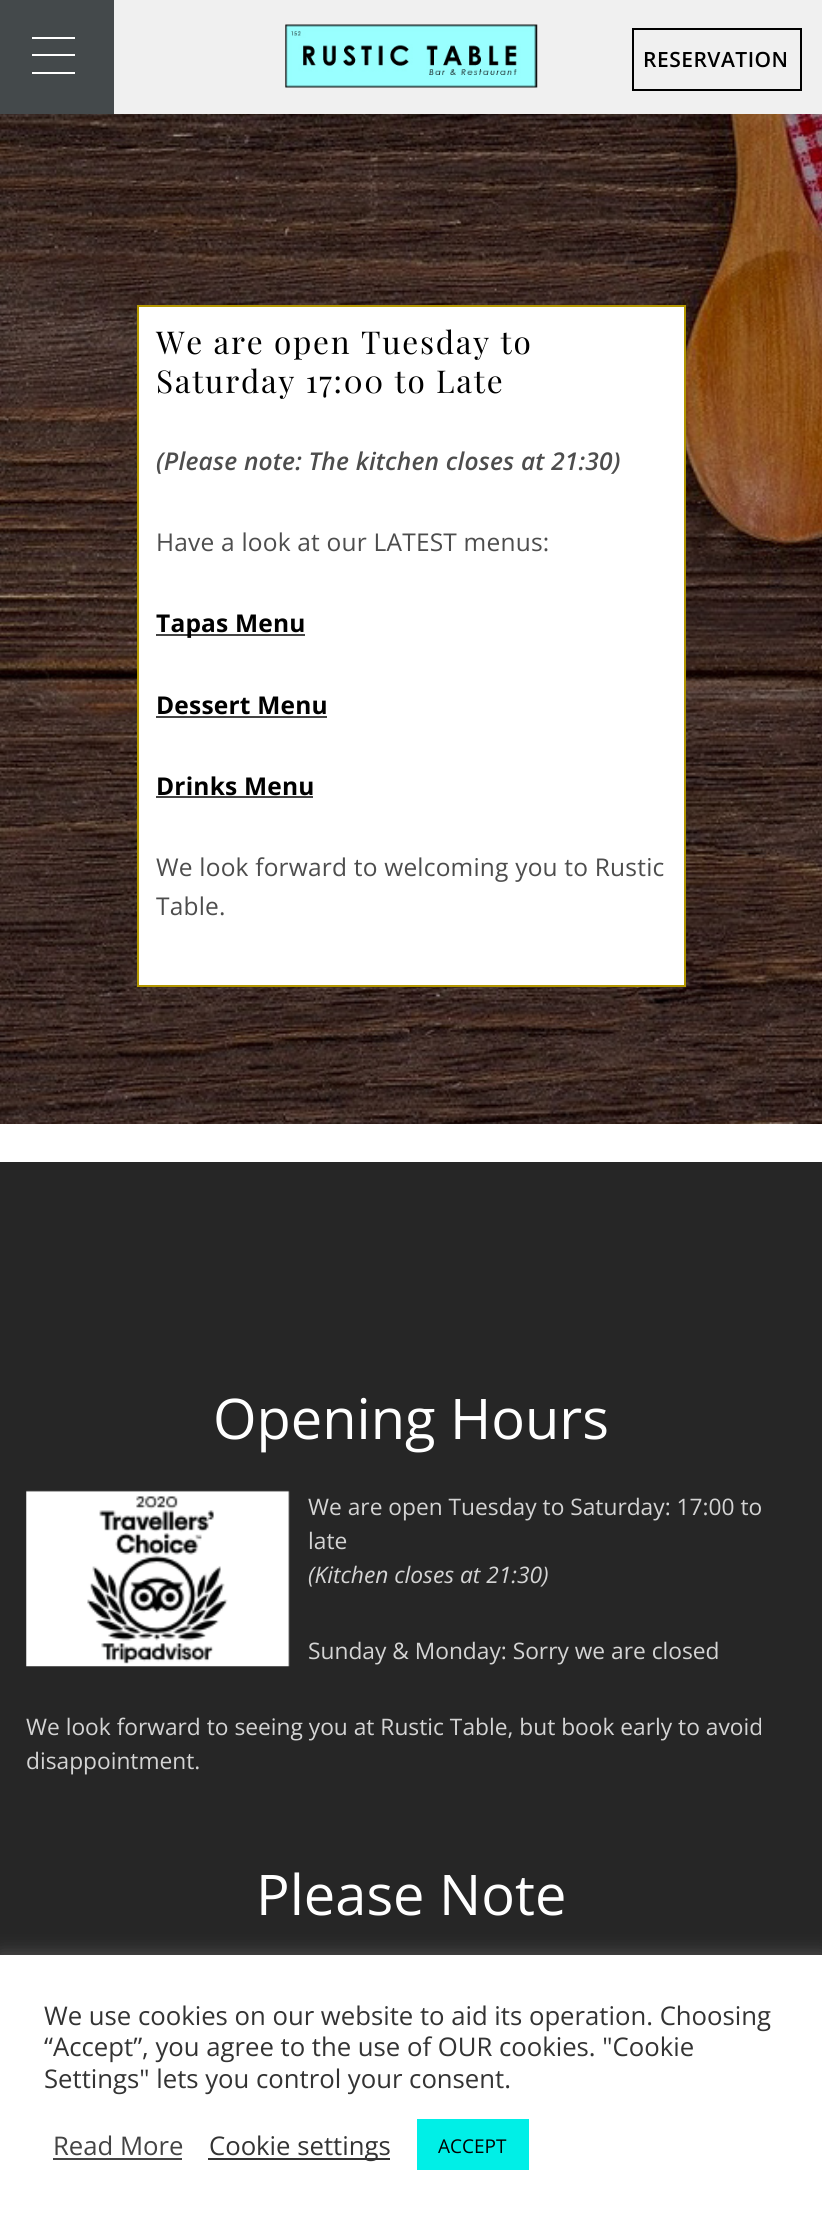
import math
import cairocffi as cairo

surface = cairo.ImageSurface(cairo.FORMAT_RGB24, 822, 2222)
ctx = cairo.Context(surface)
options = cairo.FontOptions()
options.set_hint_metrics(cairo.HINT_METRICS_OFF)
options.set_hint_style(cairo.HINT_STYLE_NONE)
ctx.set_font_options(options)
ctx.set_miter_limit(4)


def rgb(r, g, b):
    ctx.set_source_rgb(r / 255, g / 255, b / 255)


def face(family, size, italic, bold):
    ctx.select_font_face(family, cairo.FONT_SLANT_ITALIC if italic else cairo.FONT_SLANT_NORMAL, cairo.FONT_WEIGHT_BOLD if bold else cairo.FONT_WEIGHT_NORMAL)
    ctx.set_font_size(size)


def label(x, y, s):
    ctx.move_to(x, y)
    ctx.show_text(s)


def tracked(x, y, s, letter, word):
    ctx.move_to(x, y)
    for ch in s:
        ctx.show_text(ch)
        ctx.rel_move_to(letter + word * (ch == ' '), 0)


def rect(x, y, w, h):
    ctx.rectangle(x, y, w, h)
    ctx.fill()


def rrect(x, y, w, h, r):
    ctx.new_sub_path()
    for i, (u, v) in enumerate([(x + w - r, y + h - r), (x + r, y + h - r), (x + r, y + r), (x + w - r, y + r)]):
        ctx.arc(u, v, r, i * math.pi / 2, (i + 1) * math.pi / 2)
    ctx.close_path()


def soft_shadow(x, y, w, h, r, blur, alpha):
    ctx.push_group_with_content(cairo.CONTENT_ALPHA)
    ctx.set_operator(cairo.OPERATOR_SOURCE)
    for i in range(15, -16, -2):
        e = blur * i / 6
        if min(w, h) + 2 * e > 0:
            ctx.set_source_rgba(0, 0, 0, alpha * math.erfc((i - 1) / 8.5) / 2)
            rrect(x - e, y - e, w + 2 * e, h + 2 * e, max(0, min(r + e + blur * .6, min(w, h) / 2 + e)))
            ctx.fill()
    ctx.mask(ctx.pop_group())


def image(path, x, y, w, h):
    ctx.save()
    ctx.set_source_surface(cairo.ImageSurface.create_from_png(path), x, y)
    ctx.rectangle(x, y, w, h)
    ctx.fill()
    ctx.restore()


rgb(255, 255, 255)
ctx.paint()
rgb(68, 73, 75)
rect(0, 0, 114, 114)
rgb(255, 255, 255)
rect(32, 54, 43, 2)
rect(32, 37, 43, 2)
rect(32, 72, 43, 2)
rgb(240, 240, 240)
rect(114, 0, 708, 114)
image('image0.png', 285, 24, 253, 64)
ctx.rectangle(633, 29, 168, 61)
rgb(0, 0, 0)
ctx.stroke()
face('Open Sans SemiBold', 21, 0, 0)
tracked(643, 67, 'RESERVATION', 0.5, 0)
image('image1.png', 0, 114, 822, 1010)
rgb(255, 255, 255)
ctx.rectangle(138, 306, 547, 680)
ctx.fill_preserve()
rgb(179, 151, 0)
ctx.stroke()
face('Playfair Display', 31.5, 0, 0)
rgb(0, 0, 0)
tracked(156, 354, 'We are open Tuesday to', 1.75, 0)
tracked(156, 393, 'Saturday 17:00 to Late', 1.75, 0)
face('Open Sans SemiBold', 24.5, 1, 0)
rgb(77, 77, 77)
tracked(156, 470, '(Please note: The kitchen closes at 21:30)', 0.2, 0)
face('Open Sans', 24.5, 0, 0)
tracked(156, 551, 'Have a look at our LATEST menus:', 0.2, 0)
rgb(68, 68, 68)
rect(156, 634, 149, 2)
face('Open Sans', 24.5, 0, 1)
rgb(0, 0, 0)
tracked(156, 632, 'Tapas Menu', 0.2, 0)
tracked(156, 714, 'Dessert Menu', 0.2, 0)
rgb(68, 68, 68)
rect(156, 716, 171, 2)
rgb(0, 0, 0)
tracked(156, 795, 'Drinks Menu', 0.2, 0)
rgb(68, 68, 68)
rect(156, 796, 157, 2)
face('Open Sans', 24.5, 0, 0)
rgb(77, 77, 77)
tracked(156, 876, 'We look forward to welcoming you to Rustic', 0.2, 0)
tracked(156, 915, 'Table.', 0.2, 0)
rgb(38, 38, 38)
rect(0, 1162, 822, 793)
face('Open Sans', 56, 0, 0)
rgb(255, 255, 255)
label(213, 1439, 'Opening Hours')
image('image2.png', 26, 1490, 264, 177)
face('Open Sans', 22.75, 0, 0)
rgb(212, 212, 212)
label(308, 1515, 'We are open Tuesday to Saturday: 17:00 to')
label(308, 1549, 'late')
face('Open Sans', 22.75, 1, 0)
label(308, 1583, '(Kitchen closes at 21:30)')
face('Open Sans', 22.75, 0, 0)
label(308, 1659, 'Sunday & Monday: Sorry we are closed')
label(26, 1735, 'We look forward to seeing you at Rustic Table, but book early to avoid')
label(26, 1769, 'disappointment.')
face('Open Sans', 56, 0, 0)
rgb(255, 255, 255)
label(256, 1915, 'Please Note')
rgb(172, 171, 171)
soft_shadow(0, 1953, 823, 268, 0, 9, 0.3)
rgb(255, 255, 255)
rect(0, 1955, 822, 267)
face('Open Sans', 25.7, 0, 0)
rgb(51, 51, 51)
label(44, 2025, 'We use cookies on our website to aid its operation. Choosing')
label(44, 2056, '“Accept”, you agree to the use of OUR cookies. "Cookie')
label(44, 2088, 'Settings" lets you control your consent.')
rgb(68, 68, 68)
label(53, 2155, 'Read More')
rect(53, 2158, 129, 2)
rgb(51, 51, 51)
rect(208, 2158, 182, 2)
label(209, 2155, 'Cookie settings')
rgb(0, 239, 231)
rect(417, 2119, 112, 51)
face('Open Sans', 19, 0, 0)
rgb(0, 0, 0)
label(438, 2153, 'ACCEPT')
surface.write_to_png('render.png')
